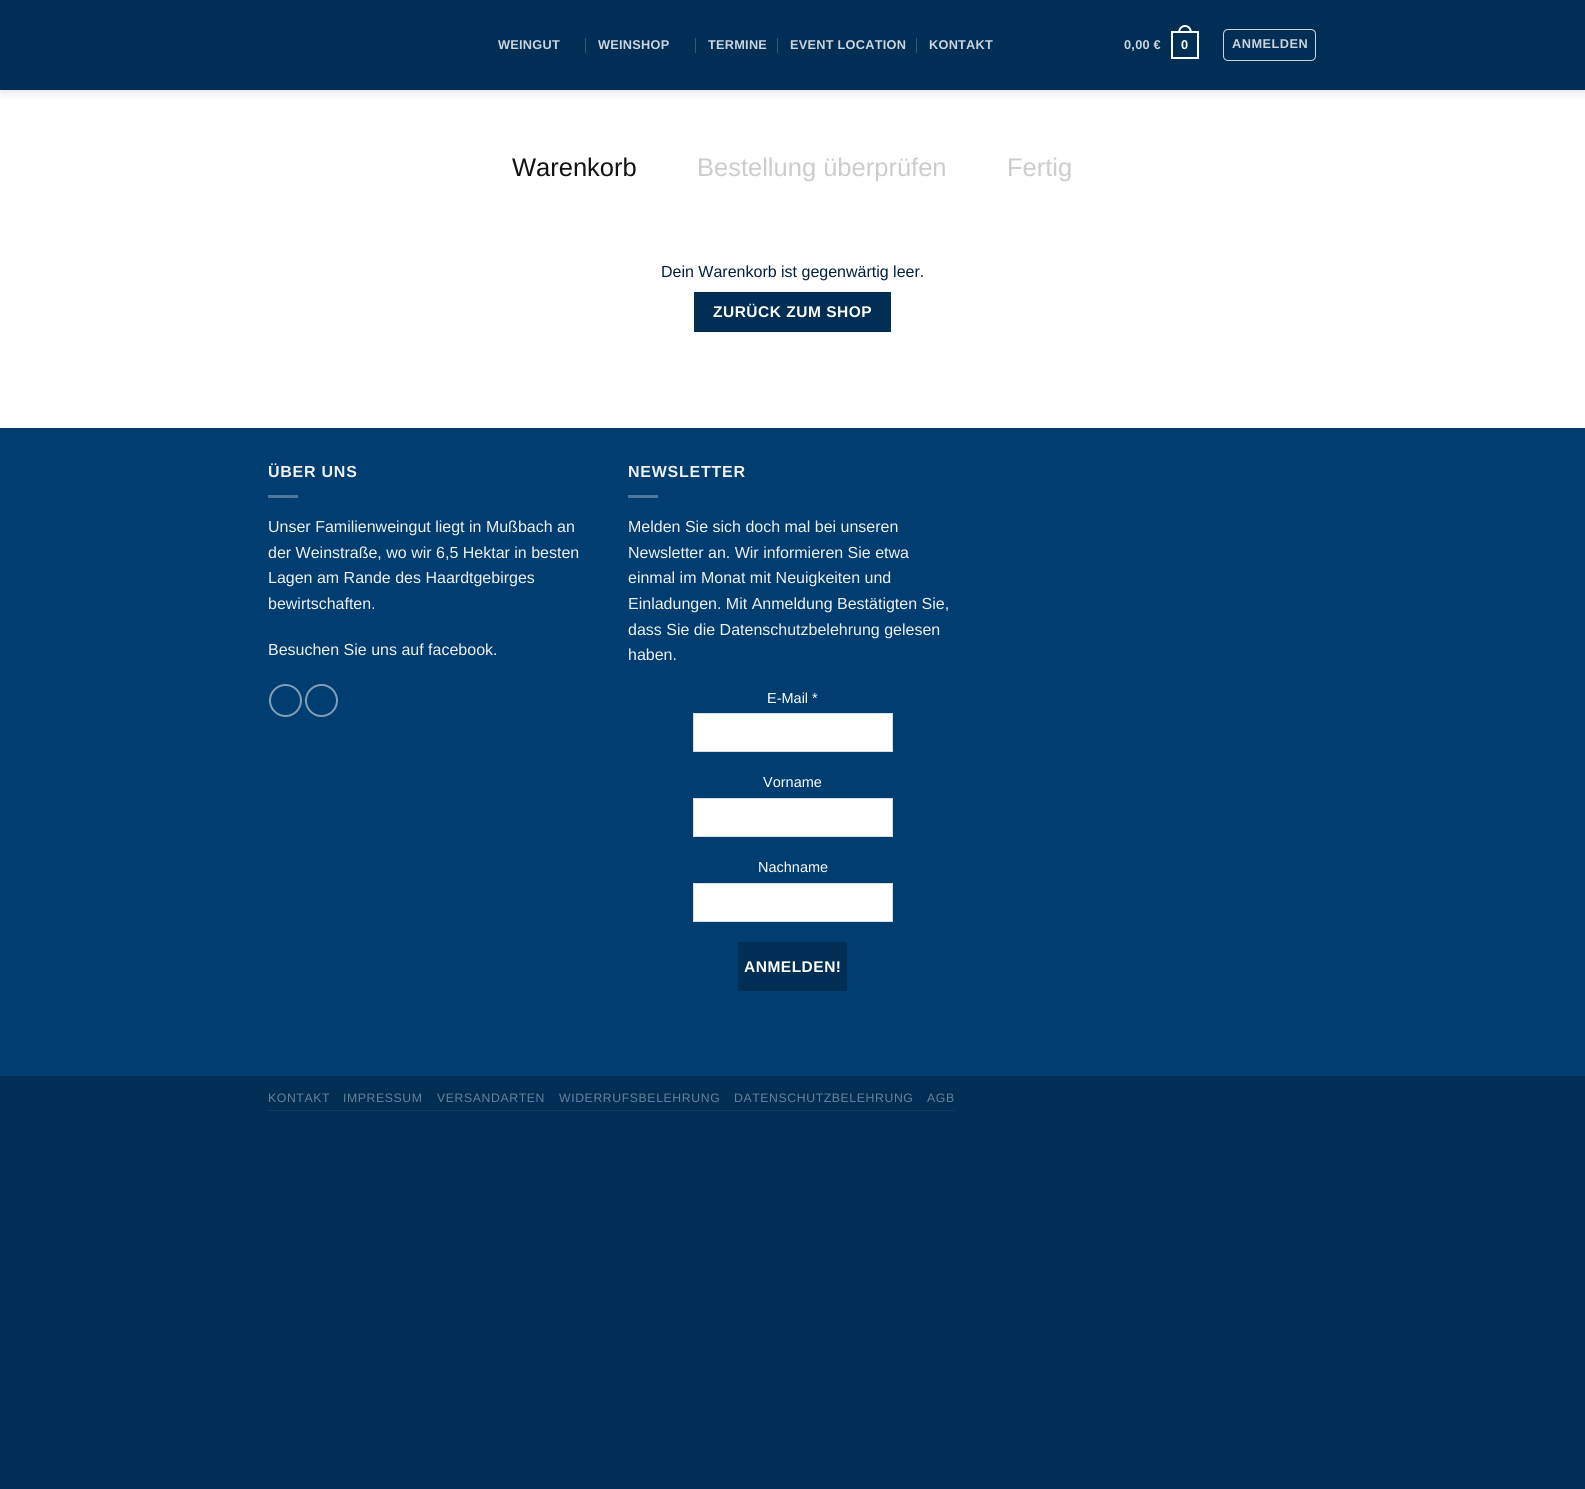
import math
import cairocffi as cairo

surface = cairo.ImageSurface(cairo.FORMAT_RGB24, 1585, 1489)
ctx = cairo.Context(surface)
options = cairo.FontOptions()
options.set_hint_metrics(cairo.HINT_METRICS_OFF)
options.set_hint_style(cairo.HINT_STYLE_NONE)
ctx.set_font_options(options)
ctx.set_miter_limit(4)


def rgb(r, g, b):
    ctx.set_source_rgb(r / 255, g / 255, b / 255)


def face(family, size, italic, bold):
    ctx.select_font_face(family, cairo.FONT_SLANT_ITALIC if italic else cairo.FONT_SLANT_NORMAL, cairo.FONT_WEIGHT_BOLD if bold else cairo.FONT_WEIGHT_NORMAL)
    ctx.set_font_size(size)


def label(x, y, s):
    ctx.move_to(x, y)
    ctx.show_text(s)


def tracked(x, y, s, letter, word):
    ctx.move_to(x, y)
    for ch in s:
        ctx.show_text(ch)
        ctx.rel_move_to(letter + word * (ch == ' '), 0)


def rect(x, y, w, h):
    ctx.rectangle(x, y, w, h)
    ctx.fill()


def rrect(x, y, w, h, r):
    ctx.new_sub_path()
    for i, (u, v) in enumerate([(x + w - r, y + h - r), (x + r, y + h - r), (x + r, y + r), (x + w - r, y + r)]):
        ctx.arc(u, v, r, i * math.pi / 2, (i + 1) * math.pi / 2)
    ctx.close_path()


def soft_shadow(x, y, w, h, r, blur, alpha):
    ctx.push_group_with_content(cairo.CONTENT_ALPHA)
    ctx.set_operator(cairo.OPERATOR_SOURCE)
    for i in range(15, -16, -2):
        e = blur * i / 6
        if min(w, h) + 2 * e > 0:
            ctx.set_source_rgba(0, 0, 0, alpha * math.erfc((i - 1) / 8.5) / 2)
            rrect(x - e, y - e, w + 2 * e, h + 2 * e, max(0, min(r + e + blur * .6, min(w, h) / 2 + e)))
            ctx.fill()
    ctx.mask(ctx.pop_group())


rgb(0, 46, 84)
ctx.paint()
rgb(255, 255, 255)
rect(0, 90, 1585, 338)
rgb(0, 0, 0)
soft_shadow(1, 1, 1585, 90, 0, 5, 0.15)
rgb(0, 46, 84)
rect(0, 0, 1585, 90)
face('Liberation Sans', 12.75, 0, 1)
rgb(204, 213, 221)
tracked(498, 49, 'WEINGUT', 0.25, 0)
rgb(51, 88, 118)
rect(585, 38, 1, 15)
rgb(204, 213, 221)
tracked(598, 49, 'WEINSHOP', 0.25, 0)
rgb(51, 88, 118)
rect(695, 38, 1, 15)
rgb(204, 213, 221)
tracked(708, 49, 'TERMINE', 0.25, 0)
rgb(51, 88, 118)
rect(777, 38, 1, 15)
rgb(204, 213, 221)
tracked(790, 49, 'EVENT LOCATION', 0.25, 0)
rgb(51, 88, 118)
rect(916, 38, 1, 15)
rgb(204, 213, 221)
tracked(929, 49, 'KONTAKT', 0.25, 0)
tracked(1124, 49, '0,00 €', 0.25, 0)
ctx.rectangle(1172, 32, 26, 26)
rgb(255, 255, 255)
ctx.stroke()
ctx.set_fill_rule(cairo.FILL_RULE_EVEN_ODD)
ctx.new_path()
ctx.move_to(1185, 25)
ctx.curve_to(1189.5, 25, 1192, 29, 1192, 33)
ctx.line_to(1178, 33)
ctx.curve_to(1178, 29, 1180.5, 25, 1185, 25)
ctx.close_path()
ctx.move_to(1185, 27)
ctx.curve_to(1188.5, 27, 1190, 30, 1190, 33)
ctx.line_to(1180, 33)
ctx.curve_to(1180, 30, 1181.5, 27, 1185, 27)
ctx.close_path()
ctx.fill()
tracked(1181, 49, '0', 0.25, 0)
rrect(1223.5, 29.5, 92, 31, 4.5)
rgb(204, 213, 221)
ctx.set_line_width(1)
ctx.stroke()
tracked(1232, 48, 'ANMELDEN', 0.5, 0)
face('Liberation Sans', 25.5, 0, 0)
rgb(17, 17, 17)
label(512, 176, 'Warenkorb')
rgb(204, 204, 204)
label(697, 176, 'Bestellung überprüfen')
label(1007, 176, 'Fertig')
face('Liberation Sans', 16, 0, 0)
rgb(0, 32, 66)
label(661, 277, 'Dein Warenkorb ist gegenwärtig leer.')
rgb(0, 46, 84)
ctx.rectangle(694.5, 292.5, 196, 39)
ctx.fill_preserve()
rgb(0, 44, 80)
ctx.stroke()
face('Liberation Sans', 15.5, 0, 1)
rgb(255, 255, 255)
tracked(713, 317, 'ZURÜCK ZUM SHOP', 0.5, 0)
rgb(0, 61, 112)
rect(0, 429, 1585, 647)
rgb(0, 58, 106)
rect(0, 428, 1585, 1)
face('Liberation Sans', 16, 0, 1)
rgb(241, 241, 241)
tracked(268, 477, 'ÜBER UNS', 0.75, 0)
rgb(77, 119, 155)
rect(268, 495, 30, 3)
face('Liberation Sans', 16, 0, 0)
rgb(241, 241, 241)
label(268, 532, 'Unser Familienweingut liegt in Mußbach an')
label(268, 558, 'der Weinstraße, wo wir 6,5 Hektar in besten')
label(268, 583, 'Lagen am Rande des Haardtgebirges')
label(268, 609, 'bewirtschaften.')
label(268, 655, 'Besuchen Sie uns auf facebook.')
ctx.new_path()
ctx.arc(285.5, 700.5, 15.5, 0, 2 * math.pi)
rgb(128, 158, 184)
ctx.set_line_width(2)
ctx.stroke()
ctx.arc(321.5, 700.5, 15.5, 0, 2 * math.pi)
ctx.stroke()
face('Liberation Sans', 16, 0, 1)
rgb(241, 241, 241)
tracked(628, 477, 'NEWSLETTER', 0.75, 0)
rgb(77, 119, 155)
rect(628, 495, 30, 3)
face('Liberation Sans', 16, 0, 0)
rgb(241, 241, 241)
label(628, 532, 'Melden Sie sich doch mal bei unseren')
label(628, 558, 'Newsletter an. Wir informieren Sie etwa')
label(628, 583, 'einmal im Monat mit Neuigkeiten und')
label(628, 609, 'Einladungen. Mit Anmeldung Bestätigten Sie,')
label(628, 635, 'dass Sie die Datenschutzbelehrung gelesen')
label(628, 660, 'haben.')
face('Liberation Sans', 14.5, 0, 0)
rgb(255, 255, 255)
label(767, 703, 'E-Mail *')
ctx.rectangle(693.5, 713.5, 199, 38)
ctx.fill_preserve()
rgb(221, 221, 221)
ctx.set_line_width(1)
ctx.stroke()
rgb(255, 255, 255)
label(763, 787, 'Vorname')
ctx.rectangle(693.5, 798.5, 199, 38)
ctx.fill_preserve()
rgb(221, 221, 221)
ctx.stroke()
rgb(255, 255, 255)
label(758, 872, 'Nachname')
ctx.rectangle(693.5, 883.5, 199, 38)
ctx.fill_preserve()
rgb(221, 221, 221)
ctx.stroke()
rgb(0, 46, 84)
rect(738, 942, 109, 49)
face('Liberation Sans', 15.5, 0, 1)
rgb(255, 255, 255)
tracked(744, 972, 'ANMELDEN!', 0.5, 0)
rgb(16, 59, 95)
rect(268, 1110, 687, 1)
face('Liberation Sans', 12.25, 0, 0)
rgb(102, 130, 153)
tracked(268, 1102, 'KONTAKT', 0.6, 0)
tracked(343, 1102, 'IMPRESSUM', 0.6, 0)
tracked(437, 1102, 'VERSANDARTEN', 0.6, 0)
tracked(559, 1102, 'WIDERRUFSBELEHRUNG', 0.6, 0)
tracked(734, 1102, 'DATENSCHUTZBELEHRUNG', 0.6, 0)
tracked(927, 1102, 'AGB', 0.6, 0)
surface.write_to_png('render.png')
